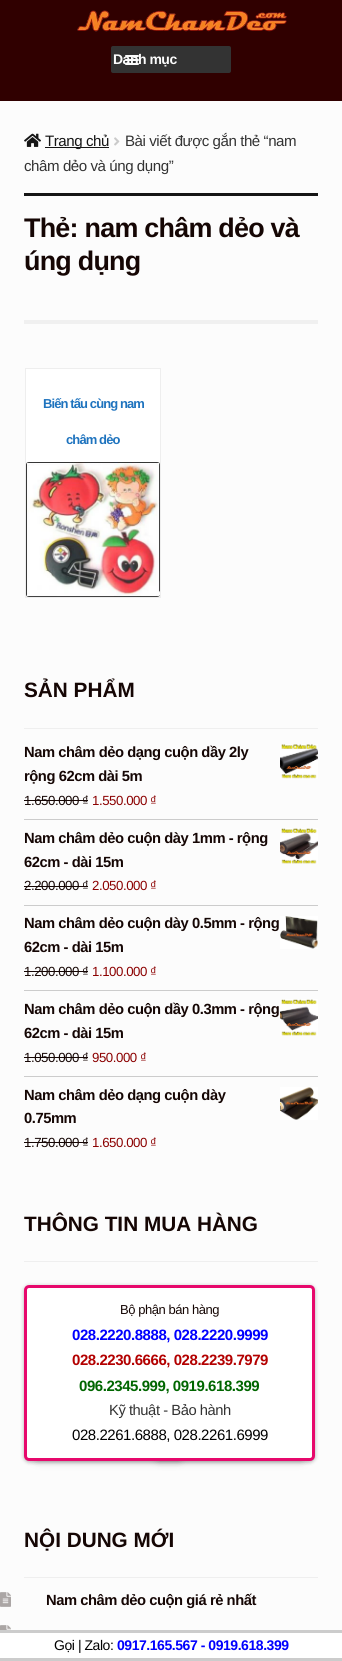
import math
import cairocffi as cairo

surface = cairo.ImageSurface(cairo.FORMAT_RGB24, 342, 1661)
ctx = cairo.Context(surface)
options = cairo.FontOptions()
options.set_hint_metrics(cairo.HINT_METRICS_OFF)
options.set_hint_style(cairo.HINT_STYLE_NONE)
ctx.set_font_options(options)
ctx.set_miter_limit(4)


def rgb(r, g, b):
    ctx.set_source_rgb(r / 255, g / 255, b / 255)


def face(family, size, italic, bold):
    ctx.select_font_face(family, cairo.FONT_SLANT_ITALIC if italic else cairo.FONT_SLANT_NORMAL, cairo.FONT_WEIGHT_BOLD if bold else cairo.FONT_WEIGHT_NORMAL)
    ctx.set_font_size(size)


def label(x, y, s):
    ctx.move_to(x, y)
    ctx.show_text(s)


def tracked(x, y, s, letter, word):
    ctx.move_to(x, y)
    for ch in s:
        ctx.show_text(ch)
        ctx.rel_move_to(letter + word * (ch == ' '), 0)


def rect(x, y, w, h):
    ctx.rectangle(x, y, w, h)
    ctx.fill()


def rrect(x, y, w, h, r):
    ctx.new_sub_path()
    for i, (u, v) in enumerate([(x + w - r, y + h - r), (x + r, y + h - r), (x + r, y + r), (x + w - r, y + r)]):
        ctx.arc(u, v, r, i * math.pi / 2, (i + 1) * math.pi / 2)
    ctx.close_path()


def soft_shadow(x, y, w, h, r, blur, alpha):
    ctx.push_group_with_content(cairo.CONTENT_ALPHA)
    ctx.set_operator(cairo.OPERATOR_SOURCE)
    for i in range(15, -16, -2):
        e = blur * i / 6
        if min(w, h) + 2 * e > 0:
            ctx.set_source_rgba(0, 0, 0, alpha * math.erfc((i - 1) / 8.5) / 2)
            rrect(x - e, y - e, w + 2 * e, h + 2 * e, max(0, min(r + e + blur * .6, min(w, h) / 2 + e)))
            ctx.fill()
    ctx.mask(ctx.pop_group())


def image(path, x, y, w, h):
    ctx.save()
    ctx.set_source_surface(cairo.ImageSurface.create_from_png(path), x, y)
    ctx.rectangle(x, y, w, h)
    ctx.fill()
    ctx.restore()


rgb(252, 252, 252)
ctx.paint()
rgb(48, 0, 0)
rect(0, 0, 342, 101)
image('image0.png', 77, 10, 210, 22)
rgb(51, 51, 51)
rrect(111, 46, 120, 27, 2)
ctx.fill()
face('Liberation Sans', 14, 0, 1)
rgb(252, 252, 252)
tracked(113, 64, 'Danh mục', -0.5, 0)
rrect(125, 59, 14, 2, 1)
ctx.fill()
rrect(125, 55, 14, 2, 1)
ctx.fill()
rrect(125, 63, 14, 2, 1)
ctx.fill()
rgb(21, 21, 21)
rect(24, 193, 294, 3)
image('image1.png', 24, 133, 17, 14)
rect(45, 147, 64, 1)
face('Liberation Sans', 15.1, 0, 0)
tracked(45, 146, 'Trang chủ', -0.45, 0)
image('image2.png', 114, 137, 6, 9)
rgb(51, 51, 51)
tracked(125, 146, 'Bài viết được gắn thẻ “nam', -0.45, 0)
tracked(24, 171, 'châm dẻo và úng dụng”', -0.45, 0)
face('Liberation Sans', 26.9, 0, 1)
rgb(21, 6, 4)
tracked(24, 237, 'Thẻ: nam châm dẻo và', -0.75, 0)
tracked(24, 270, 'úng dụng', -0.75, 0)
rgb(240, 240, 240)
rect(24, 320, 294, 4)
rgb(255, 255, 255)
ctx.rectangle(25.5, 368.5, 135, 229)
ctx.fill_preserve()
rgb(238, 238, 238)
ctx.set_line_width(1)
ctx.stroke()
face('Liberation Sans', 13, 0, 1)
rgb(30, 115, 190)
tracked(43, 408, 'Biến tấu cùng nam', -0.9, 0)
tracked(66, 444, 'châm dẻo', -0.9, 0)
image('image3.png', 26, 462, 134, 135)
rgb(239, 239, 239)
rect(24, 728, 294, 1)
face('Liberation Sans', 20.75, 0, 1)
rgb(21, 6, 4)
label(24, 697, 'SẢN PHẨM')
rgb(204, 204, 204)
rect(24, 819, 294, 1)
face('Liberation Sans', 14.75, 0, 1)
rgb(21, 6, 4)
tracked(24, 757, 'Nam châm dẻo dạng cuộn dầy 2ly', -0.45, 0)
image('image4.png', 280, 744, 38, 35)
tracked(24, 781, 'rộng 62cm dài 5m', -0.45, 0)
face('Liberation Sans', 13.25, 0, 0)
tracked(24, 805, '1.650.000 ₫', -0.45, 0)
rect(24, 800, 64, 1)
rgb(139, 0, 0)
tracked(92, 805, '1.550.000 ₫', -0.45, 0)
rgb(204, 204, 204)
rect(24, 905, 294, 1)
face('Liberation Sans', 14.75, 0, 1)
rgb(21, 6, 4)
tracked(24, 843, 'Nam châm dẻo cuộn dày 1mm - rộng', -0.45, 0)
image('image5.png', 280, 828, 38, 36)
tracked(24, 867, '62cm - dài 15m', -0.45, 0)
face('Liberation Sans', 13.25, 0, 0)
tracked(24, 890, '2.200.000 ₫', -0.45, 0)
rect(24, 886, 64, 1)
rgb(139, 0, 0)
tracked(92, 890, '2.050.000 ₫', -0.45, 0)
rgb(204, 204, 204)
rect(24, 990, 294, 1)
face('Liberation Sans', 14.75, 0, 1)
rgb(21, 6, 4)
tracked(24, 928, 'Nam châm dẻo cuộn dày 0.5mm - rộng', -0.45, 0)
image('image6.png', 280, 916, 38, 33)
tracked(24, 952, '62cm - dài 15m', -0.45, 0)
face('Liberation Sans', 13.25, 0, 0)
tracked(24, 976, '1.200.000 ₫', -0.45, 0)
rect(24, 971, 64, 1)
rgb(139, 0, 0)
tracked(92, 976, '1.100.000 ₫', -0.45, 0)
rgb(204, 204, 204)
rect(24, 1076, 294, 1)
face('Liberation Sans', 14.75, 0, 1)
rgb(21, 6, 4)
tracked(24, 1014, 'Nam châm dẻo cuộn dầy 0.3mm - rộng', -0.45, 0)
image('image7.png', 280, 999, 38, 37)
tracked(24, 1038, '62cm - dài 15m', -0.45, 0)
face('Liberation Sans', 13.25, 0, 0)
tracked(24, 1062, '1.050.000 ₫', -0.45, 0)
rect(24, 1057, 64, 1)
rgb(139, 0, 0)
tracked(92, 1062, '950.000 ₫', -0.45, 0)
face('Liberation Sans', 14.75, 0, 1)
rgb(21, 6, 4)
tracked(24, 1100, 'Nam châm dẻo dạng cuộn dày', -0.45, 0)
image('image8.png', 280, 1087, 38, 33)
tracked(24, 1123, '0.75mm', -0.45, 0)
face('Liberation Sans', 13.25, 0, 0)
tracked(24, 1147, '1.750.000 ₫', -0.45, 0)
rect(24, 1142, 64, 1)
rgb(139, 0, 0)
tracked(92, 1147, '1.650.000 ₫', -0.45, 0)
rgb(239, 239, 239)
rect(24, 1261, 294, 1)
face('Liberation Sans', 20.75, 0, 1)
rgb(21, 6, 4)
label(24, 1231, 'THÔNG TIN MUA HÀNG')
rgb(0, 0, 0)
soft_shadow(24, 1286, 291, 176, 5, 2, 0.3)
soft_shadow(37, 1424, 142, 34, 0, 5, 0.5)
soft_shadow(159, 1424, 143, 34, 0, 5, 0.5)
rgb(255, 255, 255)
rrect(25.5, 1286.5, 288, 173, 3.5)
ctx.fill_preserve()
rgb(231, 8, 108)
ctx.set_line_width(3)
ctx.stroke()
face('Liberation Sans', 13, 0, 0)
rgb(21, 6, 4)
tracked(120, 1314, 'Bộ phận bán hàng', -0.45, 0)
face('Liberation Sans', 15, 0, 1)
rgb(0, 0, 255)
tracked(72, 1340, '028.2220.8888, 028.2220.9999', -0.45, 0)
rgb(179, 0, 0)
tracked(72, 1365, '028.2230.6666, 028.2239.7979', -0.45, 0)
rgb(0, 102, 0)
tracked(79, 1391, '096.2345.999, 0919.618.399', -0.45, 0)
face('Liberation Sans', 14.75, 0, 0)
rgb(51, 51, 51)
tracked(109, 1415, 'Kỹ thuật - Bảo hành', -0.45, 0)
face('Liberation Sans', 15, 0, 0)
rgb(0, 0, 0)
tracked(72, 1440, '028.2261.6888, 028.2261.6999', -0.45, 0)
rgb(239, 239, 239)
rect(24, 1577, 294, 1)
face('Liberation Sans', 20.75, 0, 1)
rgb(21, 6, 4)
label(24, 1547, 'NỘI DUNG MỚI')
image('image9.png', 0, 1592, 11, 15)
face('Liberation Sans', 14.75, 0, 1)
tracked(46, 1605, 'Nam châm dẻo cuộn giá rẻ nhất', -0.45, 0)
image('image10.png', 0, 1625, 11, 5)
rgb(255, 255, 255)
rect(0, 1633, 342, 25)
rgb(204, 204, 204)
rect(0, 1630, 342, 3)
rect(0, 1658, 342, 3)
face('Liberation Sans', 14, 0, 0)
rgb(0, 0, 0)
tracked(54, 1650, 'Gọi | Zalo:', -0.45, 0)
face('Liberation Sans', 14, 0, 1)
rgb(0, 0, 255)
tracked(117, 1650, '0917.165.567 - 0919.618.399', -0.45, 0)
surface.write_to_png('render.png')
